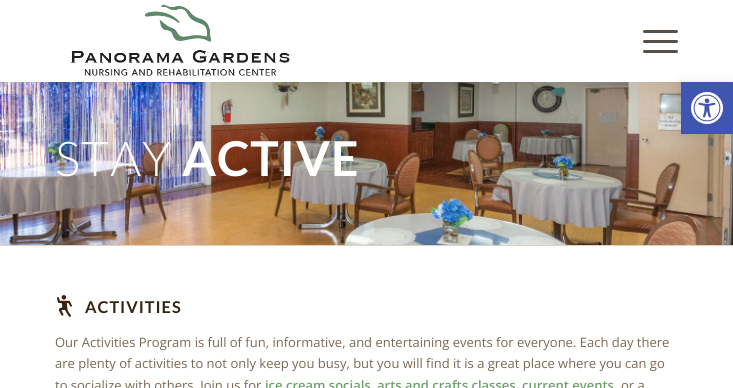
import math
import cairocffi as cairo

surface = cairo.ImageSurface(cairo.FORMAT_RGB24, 733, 388)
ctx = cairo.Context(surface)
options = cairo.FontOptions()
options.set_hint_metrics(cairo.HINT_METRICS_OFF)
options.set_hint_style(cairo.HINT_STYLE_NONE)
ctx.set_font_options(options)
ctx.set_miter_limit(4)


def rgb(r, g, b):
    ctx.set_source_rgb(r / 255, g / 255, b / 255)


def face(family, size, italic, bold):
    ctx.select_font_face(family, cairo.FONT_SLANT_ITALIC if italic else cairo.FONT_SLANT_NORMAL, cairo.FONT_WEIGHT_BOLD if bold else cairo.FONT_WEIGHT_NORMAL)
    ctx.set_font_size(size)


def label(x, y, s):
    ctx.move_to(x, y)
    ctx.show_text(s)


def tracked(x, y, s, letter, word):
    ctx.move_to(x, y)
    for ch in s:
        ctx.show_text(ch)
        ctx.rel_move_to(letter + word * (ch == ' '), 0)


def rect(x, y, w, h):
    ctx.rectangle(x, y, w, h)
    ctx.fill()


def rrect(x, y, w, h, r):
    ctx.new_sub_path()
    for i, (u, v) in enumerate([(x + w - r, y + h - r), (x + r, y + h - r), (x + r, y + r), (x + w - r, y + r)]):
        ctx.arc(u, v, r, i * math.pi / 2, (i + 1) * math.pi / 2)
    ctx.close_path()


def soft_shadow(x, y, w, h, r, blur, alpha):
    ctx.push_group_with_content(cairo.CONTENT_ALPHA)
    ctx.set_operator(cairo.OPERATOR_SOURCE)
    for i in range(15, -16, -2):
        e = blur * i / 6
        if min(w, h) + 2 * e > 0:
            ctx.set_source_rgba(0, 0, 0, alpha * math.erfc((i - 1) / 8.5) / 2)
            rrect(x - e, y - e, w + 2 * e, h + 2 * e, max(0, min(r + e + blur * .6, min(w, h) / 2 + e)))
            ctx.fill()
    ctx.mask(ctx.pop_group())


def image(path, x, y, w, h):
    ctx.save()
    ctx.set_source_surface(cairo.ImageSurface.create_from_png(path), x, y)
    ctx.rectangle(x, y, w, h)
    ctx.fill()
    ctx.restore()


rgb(255, 255, 255)
ctx.paint()
image('image2.png', 0, 82, 733, 163)
rgb(0, 0, 0)
soft_shadow(681, 82, 52, 52, 0, 5, 0.1)
rgb(64, 84, 178)
rect(681, 82, 52, 52)
image('image0.png', 691, 92, 32, 32)
image('image1.png', 71, 4, 219, 72)
rgb(87, 81, 73)
rrect(643, 40, 35, 3, 1.5)
ctx.fill()
rrect(643, 30, 35, 3, 1.5)
ctx.fill()
rrect(643, 50, 35, 3, 1.5)
ctx.fill()
face('Lato Light', 48, 0, 0)
rgb(255, 255, 255)
tracked(55, 176, 'STAY', 1, 0)
face('Lato', 48, 0, 1)
tracked(182, 176, 'ACTIVE', 1, 0)
rgb(217, 210, 195)
rect(0, 245, 733, 1)
image('image3.png', 57, 295, 15, 22)
face('Lato', 16.25, 0, 1)
rgb(56, 36, 16)
tracked(85, 313, 'ACTIVITIES', 1, 0)
face('Open Sans', 13, 0, 0)
rgb(124, 104, 83)
label(55, 347, 'Our Activities Program is full of fun, informative, and entertaining events for everyone. Each day there')
label(55, 368, 'are plenty of activities to not only keep you busy, but you will find it is a great place where you can go')
label(55, 390, 'to socialize with others. Join us for')
face('Open Sans SemiBold', 13, 0, 0)
rgb(111, 161, 109)
label(265, 390, 'ice cream socials')
label(377, 390, 'arts and crafts classes')
label(522, 390, 'current events')
face('Open Sans', 13, 0, 0)
rgb(124, 104, 83)
label(621, 390, 'or a')
surface.write_to_png('render.png')
